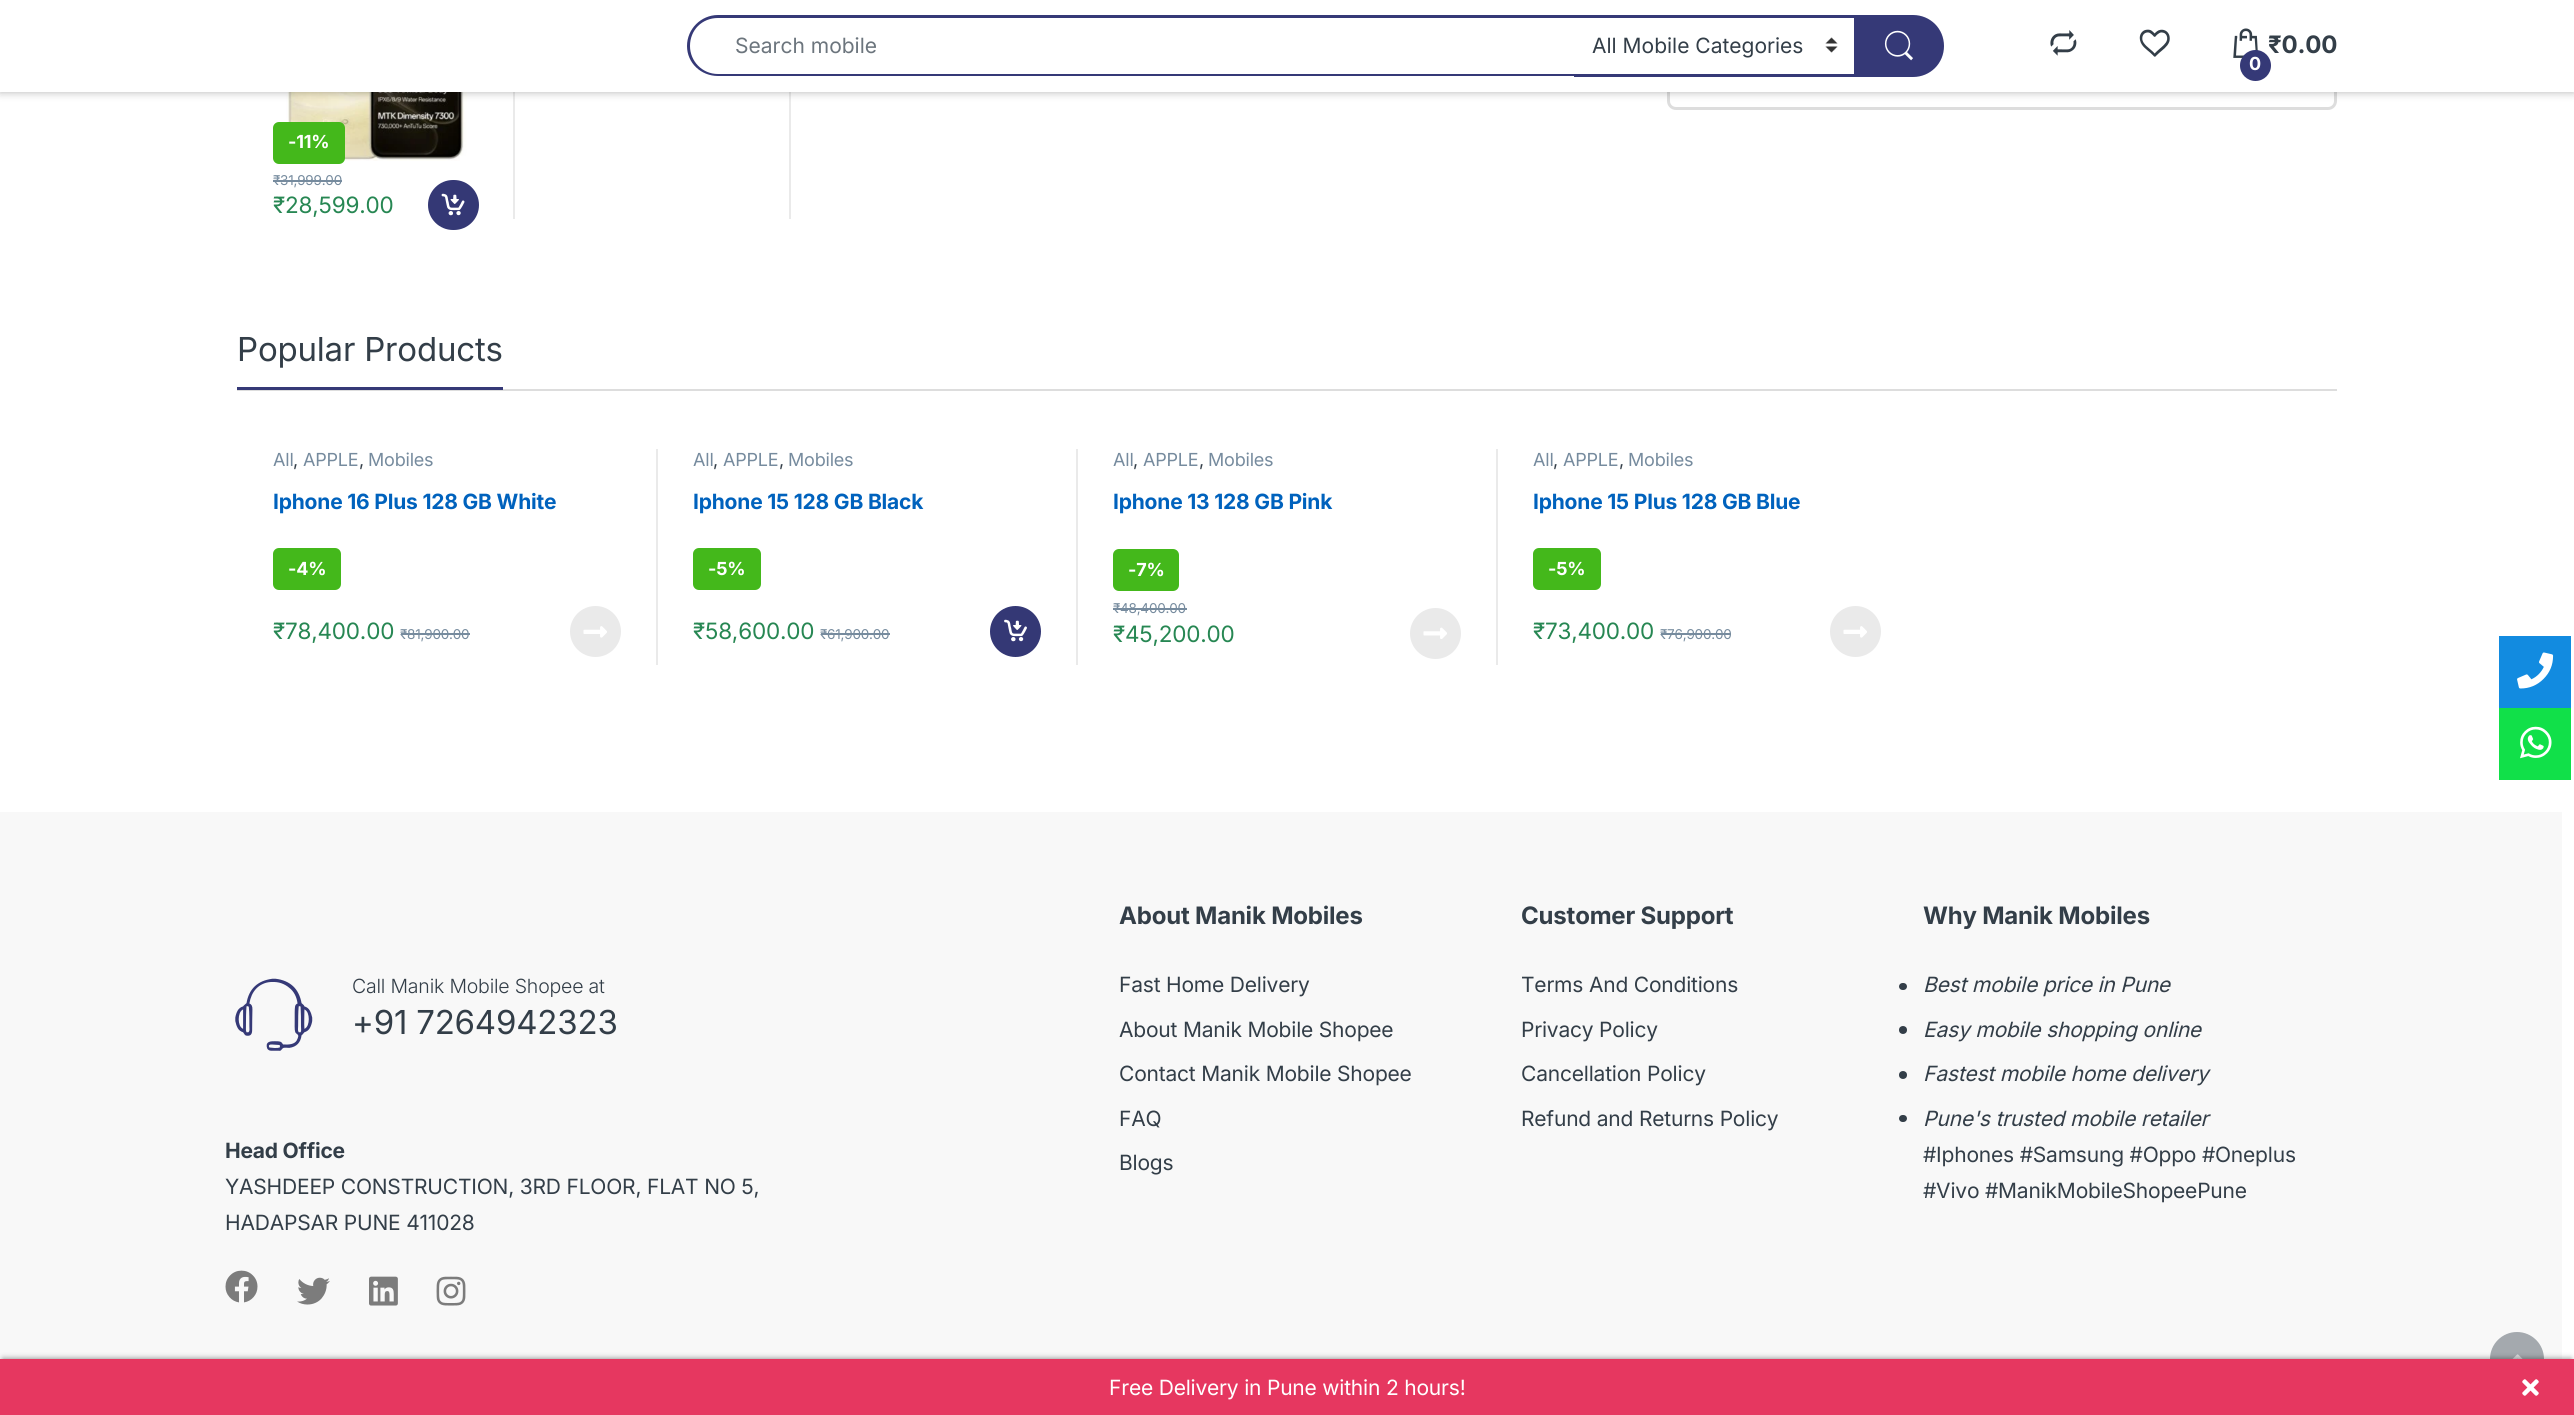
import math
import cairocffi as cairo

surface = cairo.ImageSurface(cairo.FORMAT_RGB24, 2574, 1415)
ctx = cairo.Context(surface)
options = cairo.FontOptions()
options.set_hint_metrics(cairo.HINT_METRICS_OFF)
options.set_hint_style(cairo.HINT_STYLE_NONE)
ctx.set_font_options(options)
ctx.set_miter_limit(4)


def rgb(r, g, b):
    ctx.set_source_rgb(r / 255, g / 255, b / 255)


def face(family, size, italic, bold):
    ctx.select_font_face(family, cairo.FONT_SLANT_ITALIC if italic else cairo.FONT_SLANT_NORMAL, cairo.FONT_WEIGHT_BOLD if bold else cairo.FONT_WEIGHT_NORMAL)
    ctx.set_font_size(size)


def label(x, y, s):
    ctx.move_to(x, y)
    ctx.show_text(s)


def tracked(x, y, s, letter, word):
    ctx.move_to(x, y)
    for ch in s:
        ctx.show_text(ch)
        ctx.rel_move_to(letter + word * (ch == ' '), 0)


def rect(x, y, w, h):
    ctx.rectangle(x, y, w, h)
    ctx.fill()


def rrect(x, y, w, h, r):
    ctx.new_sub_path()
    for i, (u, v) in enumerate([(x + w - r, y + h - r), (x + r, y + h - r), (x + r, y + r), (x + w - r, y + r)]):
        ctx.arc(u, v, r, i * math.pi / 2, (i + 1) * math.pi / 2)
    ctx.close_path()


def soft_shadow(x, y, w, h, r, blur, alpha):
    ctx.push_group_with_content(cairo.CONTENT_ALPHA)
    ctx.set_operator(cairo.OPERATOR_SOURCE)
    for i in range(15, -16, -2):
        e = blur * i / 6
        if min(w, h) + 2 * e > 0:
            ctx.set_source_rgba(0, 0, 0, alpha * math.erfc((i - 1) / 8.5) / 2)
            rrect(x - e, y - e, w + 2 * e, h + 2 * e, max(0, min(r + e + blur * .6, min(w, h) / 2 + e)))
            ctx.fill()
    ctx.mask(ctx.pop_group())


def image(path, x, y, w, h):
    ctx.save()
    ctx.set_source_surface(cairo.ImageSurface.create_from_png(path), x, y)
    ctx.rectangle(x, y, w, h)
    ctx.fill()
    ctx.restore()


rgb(255, 255, 255)
ctx.paint()
rrect(1668.5, -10.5, 667, 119, 7.5)
rgb(221, 221, 221)
ctx.set_line_width(3)
ctx.stroke()
image('image5.png', 286, 92, 181, 69)
rgb(234, 234, 234)
rect(513, 92, 2, 127)
rect(789, 92, 2, 127)
rgb(1, 1, 1)
soft_shadow(0, 0, 2574, 92, 0, 4.5, 0.3)
rgb(255, 255, 255)
rect(0, 0, 2574, 92)
rgb(53, 57, 119)
rect(1574, 15, 282, 3)
rect(1574, 74, 282, 3)
ctx.set_fill_rule(cairo.FILL_RULE_EVEN_ODD)
ctx.new_path()
ctx.move_to(718, 15)
ctx.line_to(1575, 15)
ctx.line_to(1575, 76)
ctx.line_to(718, 76)
ctx.curve_to(701, 76, 687, 63, 687, 46)
ctx.curve_to(687, 29, 701, 15, 718, 15)
ctx.close_path()
ctx.move_to(718, 18)
ctx.line_to(1575, 18)
ctx.line_to(1575, 74)
ctx.line_to(718, 74)
ctx.curve_to(702, 74, 690, 61, 690, 46)
ctx.curve_to(690, 30, 702, 18, 718, 18)
ctx.close_path()
ctx.fill()
face('Inter', 21, 0, 0)
rgb(108, 117, 125)
label(735, 53, 'Search mobile')
image('image0.png', 1825, 37, 13, 16)
rgb(51, 62, 72)
label(1592, 53, 'All Mobile Categories')
rgb(53, 57, 119)
ctx.new_path()
ctx.move_to(1855.5, 16.5)
ctx.line_to(1913, 16.5)
ctx.curve_to(1929.5, 16.5, 1942.5, 29.5, 1942.5, 46)
ctx.curve_to(1942.5, 62.5, 1929.5, 75.5, 1913, 75.5)
ctx.line_to(1855.5, 75.5)
ctx.close_path()
ctx.fill_preserve()
ctx.stroke()
image('image1.png', 1884, 30, 29, 31)
image('image2.png', 2050, 30, 27, 26)
image('image3.png', 2139, 29, 31, 28)
image('image4.png', 2233, 28, 25, 30)
face('Inter', 24, 0, 1)
rgb(51, 62, 72)
tracked(2268, 53, '₹0.00', -0.2, 0)
rgb(53, 57, 119)
ctx.new_path()
ctx.arc(2255.5, 65.5, 15.5, 0, 2 * math.pi)
ctx.fill()
face('Inter', 18, 0, 1)
rgb(255, 255, 255)
tracked(2249, 70, '0', -0.2, 0)
rgb(68, 184, 27)
rrect(273, 122, 72, 42, 6)
ctx.fill()
rgb(255, 255, 255)
tracked(288, 148, '-11%', -0.2, 0)
face('Inter', 13.5, 0, 0)
rgb(118, 139, 158)
tracked(273, 185, '₹', -0.2, 0)
rect(273, 180, 8, 2)
tracked(280, 185, '31,999.00', -0.2, 0)
rect(281, 180, 61, 2)
face('Inter', 22.5, 0, 0)
rgb(39, 135, 83)
tracked(273, 213, '₹28,599.00', -0.2, 0)
rgb(52, 56, 117)
rrect(428, 180, 51, 50, 25)
ctx.fill()
image('image6.png', 441, 193, 24, 23)
rgb(221, 221, 221)
rect(237, 389, 2100, 2)
face('Inter', 33, 0, 0)
rgb(51, 62, 72)
tracked(237, 361, 'Popular Products', -0.2, 0)
rgb(53, 57, 119)
rect(237, 387, 266, 3)
face('Inter', 18, 0, 0)
rgb(118, 139, 158)
tracked(273, 466, 'All', -0.2, 0)
rgb(51, 62, 72)
tracked(293, 466, ',', -0.2, 0)
rgb(118, 139, 158)
tracked(303, 466, 'APPLE', -0.2, 0)
rgb(51, 62, 72)
tracked(359, 466, ',', -0.2, 0)
rgb(118, 139, 158)
tracked(368, 466, 'Mobiles', -0.2, 0)
face('Inter', 21, 0, 1)
rgb(0, 98, 189)
tracked(273, 509, 'Iphone 16 Plus 128 GB White', -0.2, 0)
rgb(68, 184, 27)
rrect(273, 548, 68, 42, 6)
ctx.fill()
face('Inter', 18, 0, 1)
rgb(255, 255, 255)
tracked(288, 575, '-4%', -0.2, 0)
face('Inter', 22.5, 0, 0)
rgb(39, 135, 83)
tracked(273, 639, '₹78,400.00', -0.2, 0)
face('Inter', 13.5, 0, 0)
rgb(118, 139, 158)
tracked(400, 639, '₹81,900.00', -0.2, 0)
rect(401, 633, 69, 2)
rgb(234, 234, 234)
ctx.new_path()
ctx.arc(595.5, 631.5, 25.5, 0, 2 * math.pi)
ctx.fill()
image('image7.png', 583, 626, 24, 12)
rect(656, 449, 2, 216)
face('Inter', 18, 0, 0)
rgb(118, 139, 158)
tracked(693, 466, 'All', -0.2, 0)
rgb(51, 62, 72)
tracked(713, 466, ',', -0.2, 0)
rgb(118, 139, 158)
tracked(723, 466, 'APPLE', -0.2, 0)
rgb(51, 62, 72)
tracked(779, 466, ',', -0.2, 0)
rgb(118, 139, 158)
tracked(788, 466, 'Mobiles', -0.2, 0)
face('Inter', 21, 0, 1)
rgb(0, 98, 189)
tracked(693, 509, 'Iphone 15 128 GB Black', -0.2, 0)
rgb(68, 184, 27)
rrect(693, 548, 68, 42, 6)
ctx.fill()
face('Inter', 18, 0, 1)
rgb(255, 255, 255)
tracked(708, 575, '-5%', -0.2, 0)
face('Inter', 22.5, 0, 0)
rgb(39, 135, 83)
tracked(693, 639, '₹58,600.00', -0.2, 0)
face('Inter', 13.5, 0, 0)
rgb(118, 139, 158)
tracked(820, 639, '₹61,900.00', -0.2, 0)
rect(821, 633, 69, 2)
rgb(52, 56, 117)
ctx.new_path()
ctx.arc(1015.5, 631.5, 25.5, 0, 2 * math.pi)
ctx.fill()
image('image8.png', 1004, 619, 23, 23)
rgb(234, 234, 234)
rect(1076, 449, 2, 216)
face('Inter', 18, 0, 0)
rgb(118, 139, 158)
tracked(1113, 466, 'All', -0.2, 0)
rgb(51, 62, 72)
tracked(1133, 466, ',', -0.2, 0)
rgb(118, 139, 158)
tracked(1143, 466, 'APPLE', -0.2, 0)
rgb(51, 62, 72)
tracked(1199, 466, ',', -0.2, 0)
rgb(118, 139, 158)
tracked(1208, 466, 'Mobiles', -0.2, 0)
face('Inter', 21, 0, 1)
rgb(0, 98, 189)
tracked(1113, 509, 'Iphone 13 128 GB Pink', -0.2, 0)
rgb(68, 184, 27)
rrect(1113, 549, 66, 42, 6)
ctx.fill()
face('Inter', 18, 0, 1)
rgb(255, 255, 255)
tracked(1128, 576, '-7%', -0.2, 0)
face('Inter', 13.5, 0, 0)
rgb(118, 139, 158)
tracked(1113, 613, '₹', -0.2, 0)
rect(1113, 608, 8, 2)
tracked(1120, 613, '48,400.00', -0.2, 0)
rect(1121, 608, 66, 2)
face('Inter', 22.5, 0, 0)
rgb(39, 135, 83)
tracked(1113, 642, '₹45,200.00', -0.2, 0)
rgb(234, 234, 234)
ctx.new_path()
ctx.arc(1435.5, 633.5, 25.5, 0, 2 * math.pi)
ctx.fill()
image('image9.png', 1423, 627, 24, 12)
rect(1496, 449, 2, 216)
face('Inter', 18, 0, 0)
rgb(118, 139, 158)
tracked(1533, 466, 'All', -0.2, 0)
rgb(51, 62, 72)
tracked(1553, 466, ',', -0.2, 0)
rgb(118, 139, 158)
tracked(1563, 466, 'APPLE', -0.2, 0)
rgb(51, 62, 72)
tracked(1619, 466, ',', -0.2, 0)
rgb(118, 139, 158)
tracked(1628, 466, 'Mobiles', -0.2, 0)
face('Inter', 21, 0, 1)
rgb(0, 98, 189)
tracked(1533, 509, 'Iphone 15 Plus 128 GB Blue', -0.2, 0)
rgb(68, 184, 27)
rrect(1533, 548, 68, 42, 6)
ctx.fill()
face('Inter', 18, 0, 1)
rgb(255, 255, 255)
tracked(1548, 575, '-5%', -0.2, 0)
face('Inter', 22.5, 0, 0)
rgb(39, 135, 83)
tracked(1533, 639, '₹73,400.00', -0.2, 0)
face('Inter', 13.5, 0, 0)
rgb(118, 139, 158)
tracked(1660, 639, '₹76,900.00', -0.2, 0)
rect(1661, 633, 70, 2)
rgb(234, 234, 234)
ctx.new_path()
ctx.arc(1855.5, 631.5, 25.5, 0, 2 * math.pi)
ctx.fill()
image('image7.png', 1843, 626, 24, 12)
rgb(248, 248, 248)
rect(0, 812, 2562, 547)
image('image10.png', 235, 978, 78, 73)
face('Inter Light', 19.5, 0, 0)
rgb(51, 62, 72)
tracked(352, 993, 'Call Manik Mobile Shopee at', -0.2, 0)
face('Inter', 33, 0, 0)
tracked(352, 1034, '+91 7264942323', -0.2, 0)
face('Inter', 21, 0, 1)
tracked(225, 1158, 'Head Office', -0.2, 0)
face('Inter', 21, 0, 0)
tracked(225, 1194, 'YASHDEEP CONSTRUCTION, 3RD FLOOR, FLAT NO 5,', -0.2, 0)
tracked(225, 1230, 'HADAPSAR PUNE 411028', -0.2, 0)
image('image11.png', 225, 1270, 33, 33)
image('image12.png', 297, 1277, 33, 28)
image('image13.png', 369, 1276, 29, 30)
image('image14.png', 436, 1276, 30, 30)
face('Inter', 24, 0, 1)
tracked(1119, 924, 'About Manik Mobiles', -0.2, 0)
face('Inter', 21, 0, 0)
tracked(1119, 992, 'Fast Home Delivery', -0.2, 0)
tracked(1119, 1037, 'About Manik Mobile Shopee', -0.2, 0)
tracked(1119, 1081, 'Contact Manik Mobile Shopee', -0.2, 0)
tracked(1119, 1126, 'FAQ', -0.2, 0)
tracked(1119, 1170, 'Blogs', -0.2, 0)
face('Inter', 24, 0, 1)
tracked(1521, 924, 'Customer Support', -0.2, 0)
face('Inter', 21, 0, 0)
tracked(1521, 992, 'Terms And Conditions', -0.2, 0)
tracked(1521, 1037, 'Privacy Policy', -0.2, 0)
tracked(1521, 1081, 'Cancellation Policy', -0.2, 0)
tracked(1521, 1126, 'Refund and Returns Policy', -0.2, 0)
face('Inter', 24, 0, 1)
tracked(1923, 924, 'Why Manik Mobiles', -0.2, 0)
rrect(1899, 983, 8, 7, 3.5)
ctx.fill()
face('Inter', 21, 1, 0)
tracked(1923, 992, 'Best mobile price in Pune', -0.2, 0)
ctx.new_path()
ctx.arc(1903, 1030, 4, 0, 2 * math.pi)
ctx.fill()
tracked(1923, 1037, 'Easy mobile shopping online', -0.2, 0)
ctx.new_path()
ctx.arc(1903, 1075, 4, 0, 2 * math.pi)
ctx.fill()
tracked(1923, 1081, 'Fastest mobile home delivery', -0.2, 0)
rrect(1899, 1115, 8, 7, 3.5)
ctx.fill()
tracked(1923, 1126, 'Pune\'s trusted mobile retailer', -0.2, 0)
face('Inter', 21, 0, 0)
tracked(1923, 1162, '#Iphones #Samsung #Oppo #Oneplus', -0.2, 0)
tracked(1923, 1198, '#Vivo #ManikMobileShopeePune', -0.2, 0)
rgb(18, 139, 224)
rect(2499, 636, 72, 72)
image('image15.png', 2517, 652, 37, 37)
rgb(17, 224, 73)
rect(2499, 708, 72, 72)
image('image16.png', 2520, 726, 32, 33)
rgb(164, 169, 174)
ctx.arc(2517, 1359, 26, 0, 2 * math.pi)
ctx.fill_preserve()
ctx.set_line_width(2)
ctx.stroke()
image('image17.png', 2512, 1354, 11, 5)
rgb(0, 0, 0)
soft_shadow(3, 1359, 2568, 51, 0, 3, 0.5)
rgb(230, 55, 96)
rect(0, 1359, 2574, 56)
rgb(255, 255, 255)
tracked(1109, 1395, 'Free Delivery in Pune within 2 hours!', -0.2, 0)
image('image18.png', 2522, 1379, 17, 17)
surface.write_to_png('render.png')
